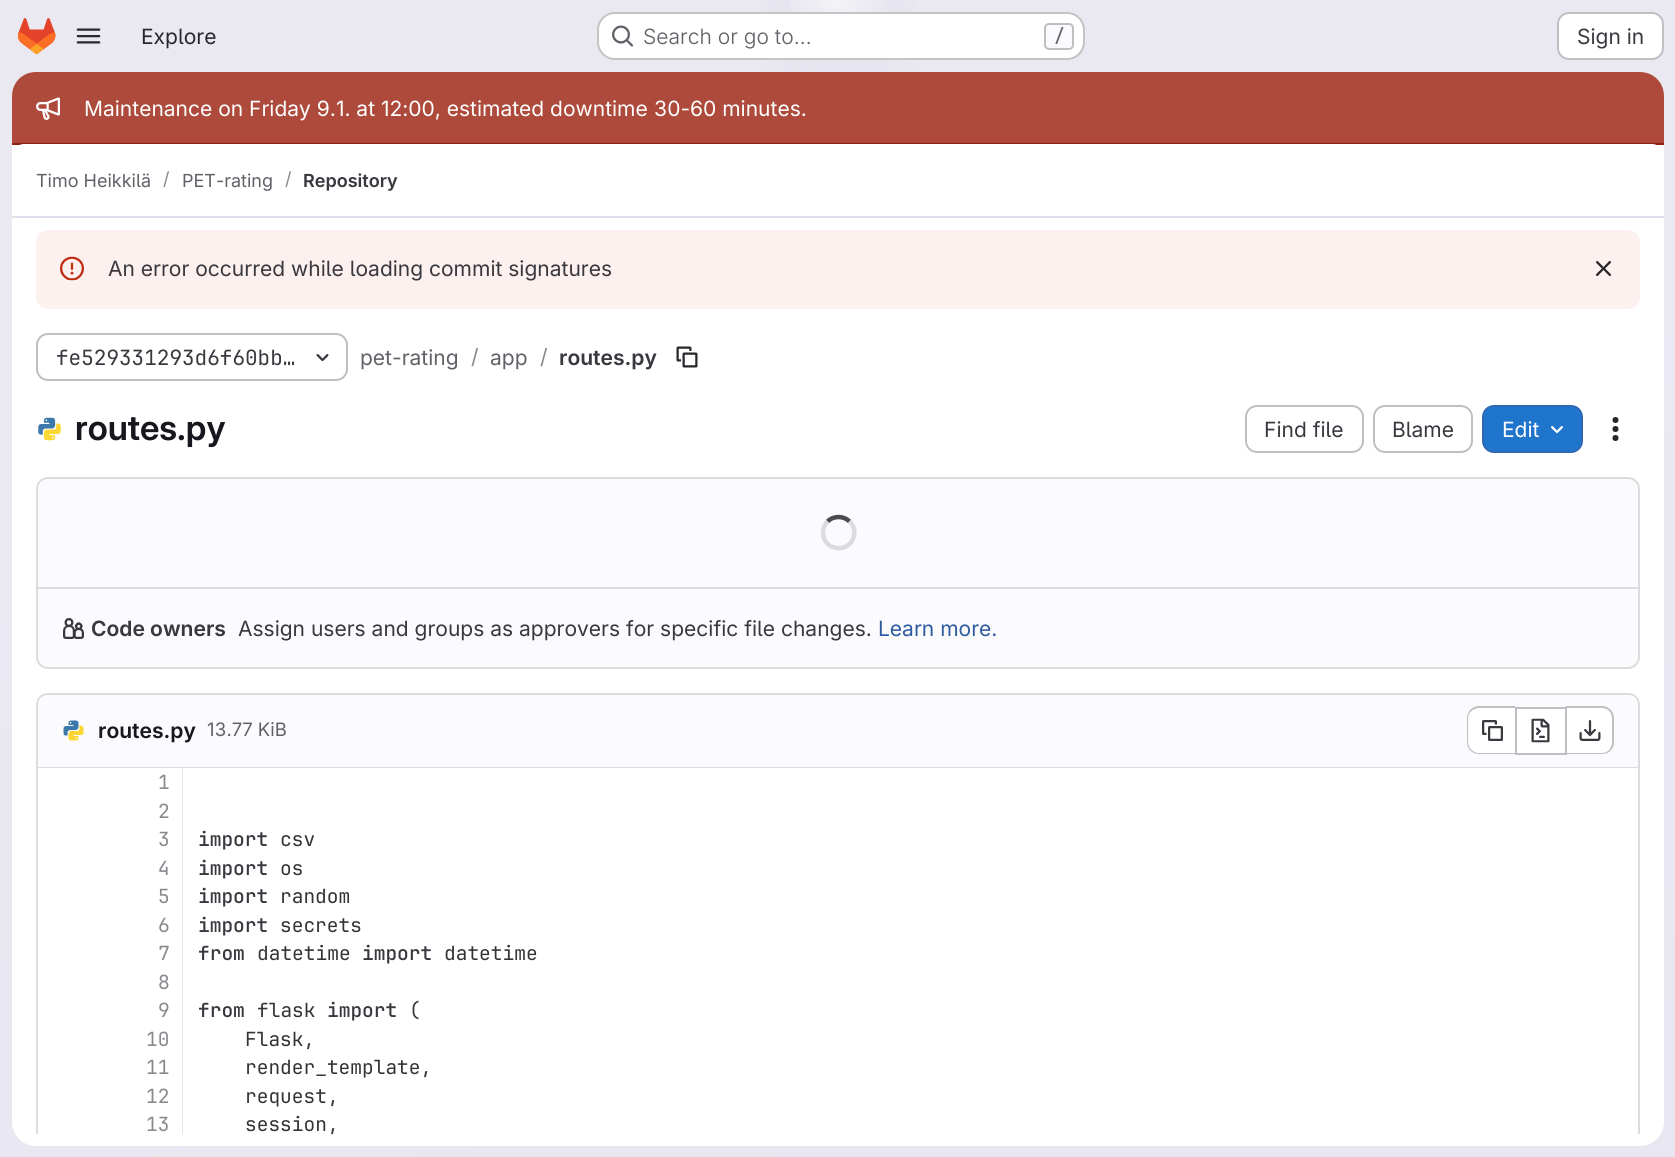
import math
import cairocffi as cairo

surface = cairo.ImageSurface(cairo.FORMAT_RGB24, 1675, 1157)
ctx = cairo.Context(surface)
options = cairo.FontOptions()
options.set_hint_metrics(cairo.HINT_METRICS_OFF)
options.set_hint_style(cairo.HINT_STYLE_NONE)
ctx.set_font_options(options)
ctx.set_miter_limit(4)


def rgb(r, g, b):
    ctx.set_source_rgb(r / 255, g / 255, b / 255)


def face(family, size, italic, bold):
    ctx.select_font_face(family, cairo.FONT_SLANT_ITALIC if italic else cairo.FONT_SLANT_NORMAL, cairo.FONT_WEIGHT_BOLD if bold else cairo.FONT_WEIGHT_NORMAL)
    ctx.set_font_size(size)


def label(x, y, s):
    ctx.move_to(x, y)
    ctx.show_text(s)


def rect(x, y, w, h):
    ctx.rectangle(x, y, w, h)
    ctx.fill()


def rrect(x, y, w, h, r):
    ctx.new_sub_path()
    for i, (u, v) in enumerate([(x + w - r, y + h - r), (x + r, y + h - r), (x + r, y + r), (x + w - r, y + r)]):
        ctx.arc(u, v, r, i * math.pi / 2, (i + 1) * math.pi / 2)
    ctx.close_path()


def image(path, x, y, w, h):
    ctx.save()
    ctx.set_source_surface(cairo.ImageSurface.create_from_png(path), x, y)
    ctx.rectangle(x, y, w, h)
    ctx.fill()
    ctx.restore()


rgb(255, 255, 255)
ctx.paint()
gradient = cairo.LinearGradient(962, 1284, 713, -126)
gradient.add_color_stop_rgba(0, 0.91, 0.902, 0.941, 1)
gradient.add_color_stop_rgba(0.7, 0.918, 0.914, 0.949, 1)
ctx.set_source(gradient)
rect(0, 0, 1675, 1157)
gradient = cairo.RadialGradient(0, 0, 0, 0, 0, 1)
gradient.set_matrix(cairo.Matrix(1 / 838, 0, 0, 1 / 1158, -1 * 838 / 838, -1 * 0 / 1158))
gradient.add_color_stop_rgba(0, 0.894, 0.886, 0.929, 1)
gradient.add_color_stop_rgba(0.13, 0.894, 0.886, 0.929, 0)
ctx.set_source(gradient)
rect(759, 0, 158, 72)
gradient = cairo.RadialGradient(0, 0, 0, 0, 0, 1)
gradient.set_matrix(cairo.Matrix(1 / 838, 0, 0, 1 / 1158, -1 * 838 / 838, -1 * 0 / 1158))
gradient.add_color_stop_rgba(0, 0.894, 0.886, 0.925, 1)
gradient.add_color_stop_rgba(0.09, 0.894, 0.886, 0.925, 0)
ctx.set_source(gradient)
rect(812, 1, 52, 41)
gradient = cairo.RadialGradient(838, 0, 0, 838, 0, 1429)
gradient.add_color_stop_rgba(0, 1, 1, 1, 0.6)
gradient.add_color_stop_rgba(0.04, 1, 1, 1, 0)
ctx.set_source(gradient)
rect(790, 0, 96, 12)
image('image0.png', 18, 18, 38, 36)
image('image1.png', 76, 28, 25, 16)
face('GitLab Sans', 21, 0, 0)
rgb(40, 39, 45)
label(141, 44, 'Explore')
rgb(255, 255, 255)
rrect(597, 12, 488, 48, 18)
ctx.fill()
rrect(598, 13, 486, 46, 17)
ctx.set_source_rgba(0.02, 0.02, 0.024, 0.24)
ctx.stroke()
image('image2.png', 612, 25, 21, 22)
face('GitLab Sans Light', 21, 0, 0)
rgb(98, 97, 104)
label(643, 44, 'Search or go to…')
rgb(251, 250, 253)
rrect(1045, 24, 28, 25, 4)
ctx.fill_preserve()
rgb(191, 191, 195)
ctx.stroke()
face('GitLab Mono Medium', 18, 0, 0)
rgb(98, 97, 104)
label(1054, 42, '/')
rgb(255, 255, 255)
rrect(1558, 13, 105, 46, 11)
ctx.fill_preserve()
rgb(191, 191, 195)
ctx.stroke()
face('GitLab Sans', 21, 0, 0)
rgb(58, 56, 63)
label(1577, 44, 'Sign in')
rgb(255, 255, 255)
rrect(12, 72, 1652, 1074, 24)
ctx.fill()
rgb(173, 74, 59)
ctx.new_path()
ctx.move_to(36, 72)
ctx.line_to(1640, 72)
ctx.curve_to(1653.5, 72, 1664, 82.5, 1664, 96)
ctx.line_to(1664, 144)
ctx.line_to(12, 144)
ctx.line_to(12, 96)
ctx.curve_to(12, 82.5, 22.5, 72, 36, 72)
ctx.close_path()
ctx.fill()
rgb(143, 33, 16)
rect(12, 143, 1652, 2)
image('image3.png', 36, 97, 24, 23)
rgb(255, 255, 255)
label(84, 116, 'Maintenance on Friday 9.1. at 12:00, estimated downtime 30-60 minutes.')
ctx.new_path()
ctx.move_to(24, 144)
ctx.line_to(1652, 144)
ctx.curve_to(1658.5, 144, 1664, 149.5, 1664, 156)
ctx.line_to(1664, 218)
ctx.line_to(12, 218)
ctx.line_to(12, 156)
ctx.curve_to(12, 149.5, 17.5, 144, 24, 144)
ctx.close_path()
ctx.fill()
rgb(225, 223, 236)
rect(12, 216, 1652, 2)
face('GitLab Sans', 18, 0, 0)
rgb(98, 97, 104)
label(36, 187, 'Timo Heikkilä')
rgb(137, 136, 141)
label(163, 185, '/')
rgb(98, 97, 104)
label(182, 187, 'PET-rating')
rgb(137, 136, 141)
label(285, 185, '/')
face('GitLab Sans SemiBold', 18, 0, 0)
rgb(58, 56, 63)
label(303, 187, 'Repository')
rgb(252, 241, 239)
rrect(36, 230, 1604, 79, 12)
ctx.fill()
image('image4.png', 60, 256, 24, 25)
face('GitLab Sans', 21, 0, 0)
rgb(58, 56, 63)
label(108, 276, 'An error occurred while loading commit signatures')
image('image5.png', 1596, 261, 15, 15)
rrect(37, 334, 310, 46, 11)
rgb(191, 191, 195)
ctx.stroke()
face('GitLab Mono', 21, 0, 0)
rgb(58, 56, 63)
label(56, 365, 'fe529331293d6f60bb…')
image('image6.png', 316, 354, 13, 8)
face('GitLab Sans', 21, 0, 0)
rgb(98, 97, 104)
label(360, 365, 'pet-rating')
rgb(137, 136, 141)
label(471, 364, '/')
rgb(98, 97, 104)
label(490, 365, 'app')
rgb(137, 136, 141)
label(540, 364, '/')
face('GitLab Sans SemiBold', 21, 0, 0)
rgb(58, 56, 63)
label(559, 365, 'routes.py')
image('image7.png', 676, 346, 22, 22)
image('image8.png', 38, 417, 23, 24)
face('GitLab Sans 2 SemiBold', 34.5, 0, 0)
rgb(24, 23, 29)
label(75, 440, 'routes.py')
rrect(1246, 406, 117, 46, 11)
rgb(191, 191, 195)
ctx.stroke()
face('GitLab Sans', 21, 0, 0)
rgb(58, 56, 63)
label(1264, 437, 'Find file')
rrect(1374, 406, 98, 46, 11)
rgb(191, 191, 195)
ctx.stroke()
rgb(58, 56, 63)
label(1392, 437, 'Blame')
rgb(31, 117, 203)
rrect(1483, 406, 99, 46, 11)
ctx.fill_preserve()
rgb(47, 104, 180)
ctx.stroke()
rgb(255, 255, 255)
label(1502, 437, 'Edit')
image('image9.png', 1551, 426, 12, 8)
image('image10.png', 1612, 417, 7, 24)
rgb(251, 250, 253)
rrect(37, 478, 1602, 190, 11)
ctx.fill_preserve()
rgb(220, 220, 222)
ctx.stroke()
ctx.new_path()
ctx.move_to(827.5, 521.5)
ctx.curve_to(833.5, 515.5, 843.5, 515.5, 849.5, 521.5)
rgb(76, 75, 81)
ctx.set_line_width(4.5)
ctx.stroke()
ctx.new_path()
ctx.move_to(849.5, 521.5)
ctx.curve_to(853.5, 525, 855, 530.5, 854, 535.5)
ctx.curve_to(850.5, 554, 823, 551.5, 823, 532.5)
ctx.curve_to(823, 528.5, 824.5, 524.5, 827.5, 521.5)
rgb(220, 220, 222)
ctx.stroke()
rect(38, 587, 1600, 2)
image('image11.png', 63, 618, 21, 21)
face('GitLab Sans SemiBold', 21, 0, 0)
rgb(58, 56, 63)
label(91, 636, 'Code owners')
face('GitLab Sans', 21, 0, 0)
label(238, 636, 'Assign users and groups as approvers for specific file changes.')
rgb(47, 92, 160)
label(878, 636, 'Learn more.')
ctx.save()
ctx.rectangle(12, 218, 1652, 916)
ctx.clip()
rgb(220, 220, 222)
ctx.new_path()
ctx.move_to(48, 693)
ctx.curve_to(41, 693, 36, 698, 36, 705)
ctx.line_to(36, 1146)
ctx.line_to(38, 1146)
ctx.line_to(38, 705)
ctx.curve_to(38, 699, 42, 695, 48, 695)
ctx.line_to(1628, 695)
ctx.curve_to(1634, 695, 1638, 699, 1638, 705)
ctx.line_to(1638, 1146)
ctx.line_to(1640, 1146)
ctx.line_to(1640, 705)
ctx.curve_to(1640, 698, 1635, 693, 1628, 693)
ctx.close_path()
ctx.fill()
ctx.restore()
rgb(251, 250, 253)
ctx.new_path()
ctx.move_to(49, 695)
ctx.line_to(1627, 695)
ctx.curve_to(1633, 695, 1638, 700, 1638, 706)
ctx.line_to(1638, 768)
ctx.line_to(38, 768)
ctx.line_to(38, 706)
ctx.curve_to(38, 700, 43, 695, 49, 695)
ctx.close_path()
ctx.fill()
rgb(220, 220, 222)
rect(38, 767, 1600, 1)
image('image12.png', 63, 720, 21, 21)
face('GitLab Sans SemiBold', 21, 0, 0)
rgb(24, 23, 29)
label(98, 738, 'routes.py')
face('GitLab Sans', 18.5, 0, 0)
rgb(98, 97, 104)
label(207, 736, '13.77 KiB')
rgb(255, 255, 255)
ctx.new_path()
ctx.move_to(1480, 708)
ctx.line_to(1515, 708)
ctx.line_to(1515, 753)
ctx.line_to(1480, 753)
ctx.curve_to(1474, 753, 1469, 748, 1469, 742)
ctx.line_to(1469, 719)
ctx.curve_to(1469, 713, 1474, 708, 1480, 708)
ctx.close_path()
ctx.fill()
rgb(191, 191, 195)
ctx.set_fill_rule(cairo.FILL_RULE_EVEN_ODD)
ctx.new_path()
ctx.move_to(1479, 706)
ctx.line_to(1515, 706)
ctx.line_to(1515, 754)
ctx.line_to(1479, 754)
ctx.curve_to(1472, 754, 1467, 749, 1467, 742)
ctx.line_to(1467, 718)
ctx.curve_to(1467, 712, 1472, 706, 1479, 706)
ctx.close_path()
ctx.move_to(1479, 708)
ctx.line_to(1515, 708)
ctx.line_to(1515, 753)
ctx.line_to(1479, 753)
ctx.curve_to(1473, 753, 1468, 748, 1468, 742)
ctx.line_to(1468, 718)
ctx.curve_to(1468, 713, 1473, 708, 1479, 708)
ctx.close_path()
ctx.fill()
image('image13.png', 1482, 720, 21, 21)
rgb(255, 255, 255)
rect(1517, 709, 48, 44)
rgb(191, 191, 195)
rect(1517, 707, 48, 2)
rect(1517, 753, 48, 2)
rect(1515, 707, 2, 48)
image('image14.png', 1531, 718, 19, 25)
rgb(255, 255, 255)
ctx.new_path()
ctx.move_to(1566, 708)
ctx.line_to(1602, 708)
ctx.curve_to(1608, 708, 1613, 713, 1613, 719)
ctx.line_to(1613, 742)
ctx.curve_to(1613, 748, 1608, 753, 1602, 753)
ctx.line_to(1566, 753)
ctx.close_path()
ctx.fill()
rgb(191, 191, 195)
ctx.new_path()
ctx.move_to(1566, 706)
ctx.line_to(1602, 706)
ctx.curve_to(1609, 706, 1614, 712, 1614, 718)
ctx.line_to(1614, 742)
ctx.curve_to(1614, 749, 1609, 754, 1602, 754)
ctx.line_to(1566, 754)
ctx.close_path()
ctx.move_to(1566, 708)
ctx.line_to(1602, 708)
ctx.curve_to(1608, 708, 1612, 713, 1612, 718)
ctx.line_to(1612, 742)
ctx.curve_to(1612, 748, 1608, 753, 1602, 753)
ctx.line_to(1566, 753)
ctx.close_path()
ctx.fill()
rect(1565, 707, 2, 48)
image('image15.png', 1579, 720, 22, 21)
face('GitLab Mono', 19.5, 0, 0)
rgb(137, 136, 141)
label(158, 789, '1')
label(158, 818, '2')
label(158, 846, '3')
label(158, 875, '4')
label(158, 903, '5')
label(158, 932, '6')
label(158, 960, '7')
label(158, 989, '8')
label(158, 1017, '9')
label(146, 1046, '10')
label(146, 1074, '11')
label(146, 1103, '12')
label(146, 1131, '13')
rgb(230, 230, 230)
rect(182, 768, 1, 366)
face('GitLab Mono SemiBold', 19.5, 0, 0)
rgb(58, 56, 63)
label(198, 846, 'import')
face('GitLab Mono', 19.5, 0, 0)
rgb(51, 51, 51)
label(280, 846, 'csv')
face('GitLab Mono SemiBold', 19.5, 0, 0)
rgb(58, 56, 63)
label(198, 875, 'import')
face('GitLab Mono', 19.5, 0, 0)
rgb(51, 51, 51)
label(280, 875, 'os')
face('GitLab Mono SemiBold', 19.5, 0, 0)
rgb(58, 56, 63)
label(198, 903, 'import')
face('GitLab Mono', 19.5, 0, 0)
rgb(51, 51, 51)
label(280, 903, 'random')
face('GitLab Mono SemiBold', 19.5, 0, 0)
rgb(58, 56, 63)
label(198, 932, 'import')
face('GitLab Mono', 19.5, 0, 0)
rgb(51, 51, 51)
label(280, 932, 'secrets')
face('GitLab Mono SemiBold', 19.5, 0, 0)
rgb(58, 56, 63)
label(198, 960, 'from')
face('GitLab Mono', 19.5, 0, 0)
rgb(51, 51, 51)
label(257, 960, 'datetime')
face('GitLab Mono SemiBold', 19.5, 0, 0)
rgb(58, 56, 63)
label(362, 960, 'import')
face('GitLab Mono', 19.5, 0, 0)
rgb(51, 51, 51)
label(444, 960, 'datetime')
face('GitLab Mono SemiBold', 19.5, 0, 0)
rgb(58, 56, 63)
label(198, 1017, 'from')
face('GitLab Mono', 19.5, 0, 0)
rgb(51, 51, 51)
label(257, 1017, 'flask')
face('GitLab Mono SemiBold', 19.5, 0, 0)
rgb(58, 56, 63)
label(327, 1017, 'import')
face('GitLab Mono', 19.5, 0, 0)
label(409, 1017, '(')
rgb(51, 51, 51)
label(245, 1046, 'Flask')
rgb(58, 56, 63)
label(303, 1046, ',')
rgb(51, 51, 51)
label(245, 1074, 'render_template')
rgb(58, 56, 63)
label(420, 1074, ',')
rgb(51, 51, 51)
label(245, 1103, 'request')
rgb(58, 56, 63)
label(327, 1103, ',')
rgb(51, 51, 51)
label(245, 1131, 'session')
rgb(58, 56, 63)
label(327, 1131, ',')
surface.write_to_png('render.png')
